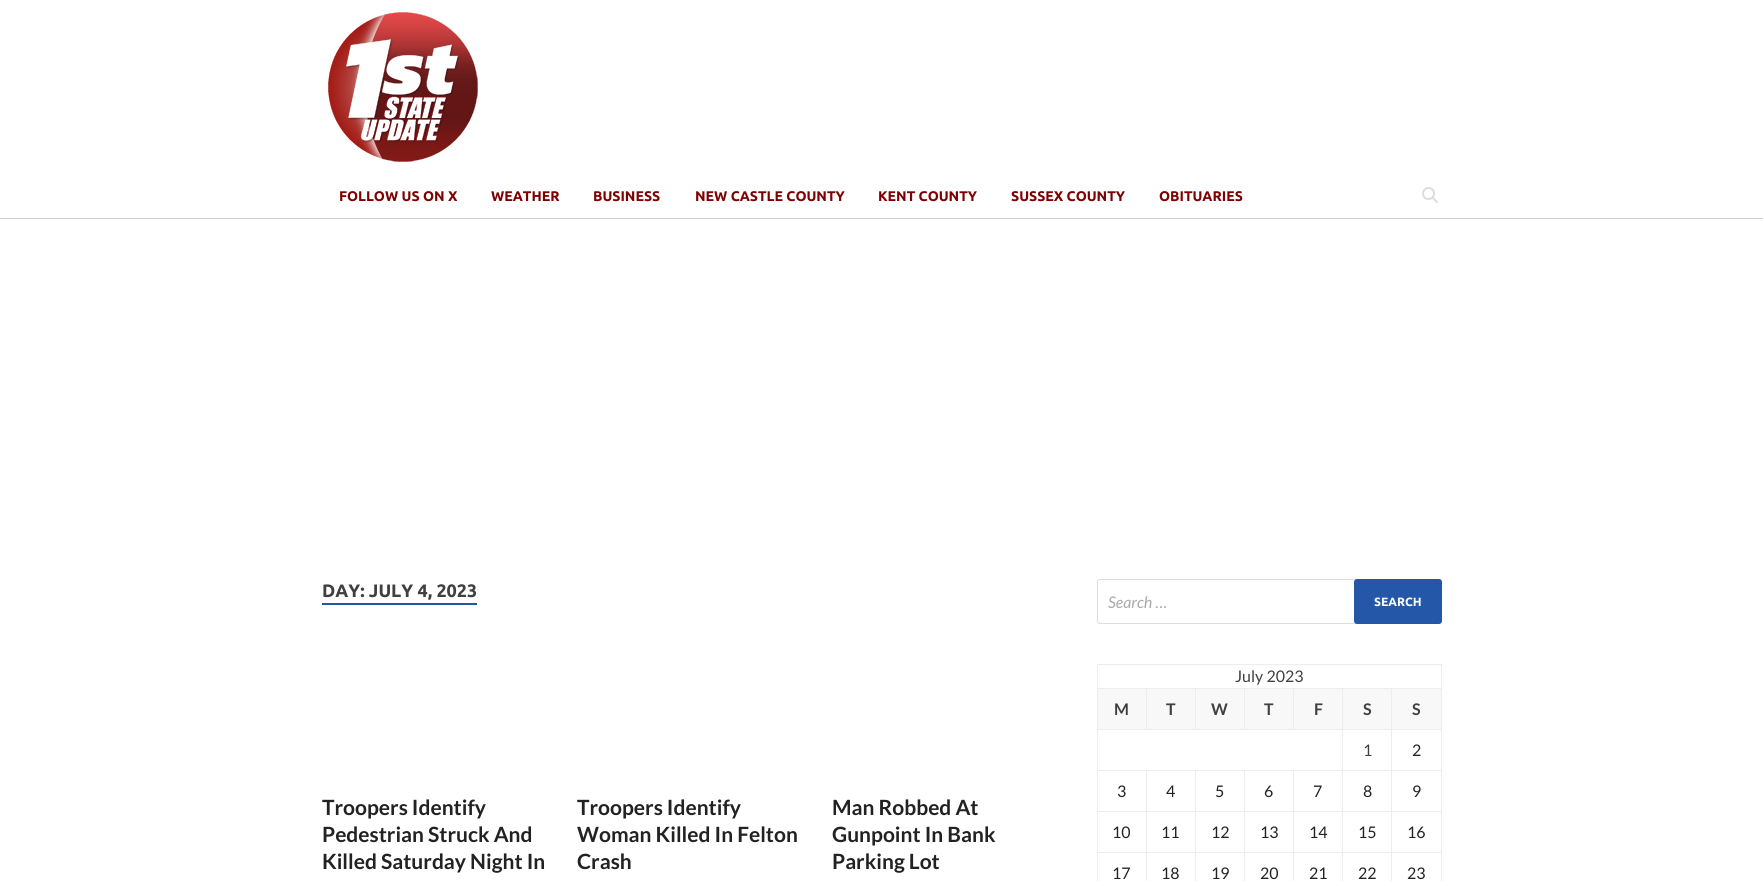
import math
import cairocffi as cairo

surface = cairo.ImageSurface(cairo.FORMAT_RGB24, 1763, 881)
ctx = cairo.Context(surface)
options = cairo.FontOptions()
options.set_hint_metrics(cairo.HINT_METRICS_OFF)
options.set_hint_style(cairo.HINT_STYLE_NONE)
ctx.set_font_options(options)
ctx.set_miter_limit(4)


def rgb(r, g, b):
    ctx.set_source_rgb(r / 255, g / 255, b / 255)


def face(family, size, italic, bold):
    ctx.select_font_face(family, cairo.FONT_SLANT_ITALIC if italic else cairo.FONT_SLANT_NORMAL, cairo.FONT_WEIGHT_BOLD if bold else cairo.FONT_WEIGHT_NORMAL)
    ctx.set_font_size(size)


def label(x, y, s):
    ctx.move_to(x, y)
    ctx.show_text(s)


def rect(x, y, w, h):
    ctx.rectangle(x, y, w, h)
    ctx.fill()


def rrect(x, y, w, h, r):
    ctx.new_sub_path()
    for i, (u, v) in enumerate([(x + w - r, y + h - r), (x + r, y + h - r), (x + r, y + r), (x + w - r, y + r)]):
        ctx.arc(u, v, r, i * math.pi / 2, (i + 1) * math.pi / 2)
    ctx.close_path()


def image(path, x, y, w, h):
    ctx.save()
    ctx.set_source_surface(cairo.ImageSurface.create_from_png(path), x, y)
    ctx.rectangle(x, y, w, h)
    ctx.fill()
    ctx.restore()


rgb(255, 255, 255)
ctx.paint()
image('image0.png', 328, 12, 150, 150)
rgb(204, 204, 204)
rect(0, 218, 1763, 1)
face('Ubuntu', 14, 0, 1)
rgb(126, 1, 1)
label(339, 201, 'FOLLOW US ON X')
label(491, 201, 'WEATHER')
label(593, 201, 'BUSINESS')
label(695, 201, 'NEW CASTLE COUNTY')
label(878, 201, 'KENT COUNTY')
label(1011, 201, 'SUSSEX COUNTY')
label(1159, 201, 'OBITUARIES')
image('image1.png', 1422, 187, 16, 16)
face('Ubuntu', 18, 0, 1)
rgb(64, 64, 64)
label(322, 597, 'DAY: JULY 4, 2023')
rgb(36, 87, 167)
rect(322, 603, 155, 2)
face('Lato', 21, 0, 1)
rgb(34, 34, 34)
label(322, 815, 'Troopers Identify')
label(322, 842, 'Pedestrian Struck And')
label(322, 869, 'Killed Saturday Night In')
label(577, 815, 'Troopers Identify')
label(577, 842, 'Woman Killed In Felton')
label(577, 869, 'Crash')
label(832, 815, 'Man Robbed At')
label(832, 842, 'Gunpoint In Bank')
label(832, 869, 'Parking Lot')
rrect(1097.5, 579.5, 344, 44, 2.5)
rgb(221, 221, 221)
ctx.set_line_width(1)
ctx.stroke()
face('Lato', 16, 1, 0)
rgb(170, 170, 170)
label(1108, 608, 'Search …')
rgb(36, 87, 167)
rrect(1354, 579, 88, 45, 3)
ctx.fill()
face('Ubuntu', 12, 0, 1)
rgb(255, 255, 255)
label(1374, 606, 'SEARCH')
rgb(237, 237, 237)
rect(1097, 664, 345, 1)
rect(1441, 664, 1, 217)
rect(1097, 664, 1, 217)
face('Lato', 16, 0, 0)
rgb(64, 64, 64)
label(1235, 682, 'July 2023')
rgb(248, 248, 248)
rect(1098, 689, 48, 40)
rgb(237, 237, 237)
rect(1391, 688, 51, 1)
rect(1391, 729, 51, 1)
rect(1391, 770, 51, 1)
rect(1391, 811, 51, 1)
rect(1391, 852, 51, 1)
rect(1391, 852, 1, 29)
rect(1342, 852, 50, 1)
rect(1391, 811, 1, 42)
rect(1342, 811, 50, 1)
rect(1391, 770, 1, 42)
rect(1342, 770, 50, 1)
rect(1391, 729, 1, 42)
rect(1342, 729, 50, 1)
rect(1391, 688, 1, 42)
rect(1342, 688, 50, 1)
rect(1342, 852, 1, 29)
rect(1293, 852, 50, 1)
rect(1342, 811, 1, 42)
rect(1293, 811, 50, 1)
rect(1342, 770, 1, 42)
rect(1293, 770, 50, 1)
rect(1342, 729, 1, 42)
rect(1097, 729, 246, 1)
rect(1342, 688, 1, 42)
rect(1293, 688, 50, 1)
rect(1293, 688, 1, 42)
rect(1244, 688, 50, 1)
rect(1244, 688, 1, 42)
rect(1195, 688, 50, 1)
rect(1195, 688, 1, 42)
rect(1146, 688, 50, 1)
rect(1146, 688, 1, 42)
rect(1097, 688, 50, 1)
face('Lato', 16, 0, 1)
rgb(64, 64, 64)
label(1114, 715, 'M')
rgb(248, 248, 248)
rect(1147, 689, 48, 40)
rgb(64, 64, 64)
label(1166, 715, 'T')
rgb(248, 248, 248)
rect(1196, 689, 48, 40)
rgb(64, 64, 64)
label(1211, 715, 'W')
rgb(248, 248, 248)
rect(1245, 689, 48, 40)
rgb(64, 64, 64)
label(1264, 715, 'T')
rgb(248, 248, 248)
rect(1294, 689, 48, 40)
rgb(64, 64, 64)
label(1314, 715, 'F')
rgb(248, 248, 248)
rect(1343, 689, 48, 40)
rgb(64, 64, 64)
label(1363, 715, 'S')
rgb(248, 248, 248)
rect(1392, 689, 49, 40)
rgb(64, 64, 64)
label(1412, 715, 'S')
face('Lato', 16, 0, 0)
label(1363, 756, '1')
rgb(34, 34, 34)
label(1412, 756, '2')
rgb(237, 237, 237)
rect(1293, 852, 1, 29)
rect(1244, 852, 50, 1)
rect(1293, 811, 1, 42)
rect(1244, 811, 50, 1)
rect(1293, 770, 1, 42)
rect(1244, 770, 50, 1)
rect(1244, 852, 1, 29)
rect(1195, 852, 50, 1)
rect(1244, 811, 1, 42)
rect(1195, 811, 50, 1)
rect(1244, 770, 1, 42)
rect(1195, 770, 50, 1)
rect(1195, 852, 1, 29)
rect(1146, 852, 50, 1)
rect(1195, 811, 1, 42)
rect(1146, 811, 50, 1)
rect(1195, 770, 1, 42)
rect(1146, 770, 50, 1)
rect(1146, 852, 1, 29)
rect(1097, 852, 50, 1)
rect(1146, 811, 1, 42)
rect(1097, 811, 50, 1)
rect(1146, 770, 1, 42)
rect(1097, 770, 50, 1)
rgb(34, 34, 34)
label(1117, 797, '3')
label(1166, 797, '4')
label(1215, 797, '5')
label(1264, 797, '6')
label(1313, 797, '7')
label(1363, 797, '8')
label(1412, 797, '9')
label(1112, 838, '10')
label(1161, 838, '11')
label(1211, 838, '12')
label(1260, 838, '13')
label(1309, 838, '14')
label(1358, 838, '15')
label(1407, 838, '16')
label(1112, 879, '17')
label(1161, 879, '18')
label(1211, 879, '19')
label(1260, 879, '20')
label(1309, 879, '21')
label(1358, 879, '22')
label(1407, 879, '23')
surface.write_to_png('render.png')
